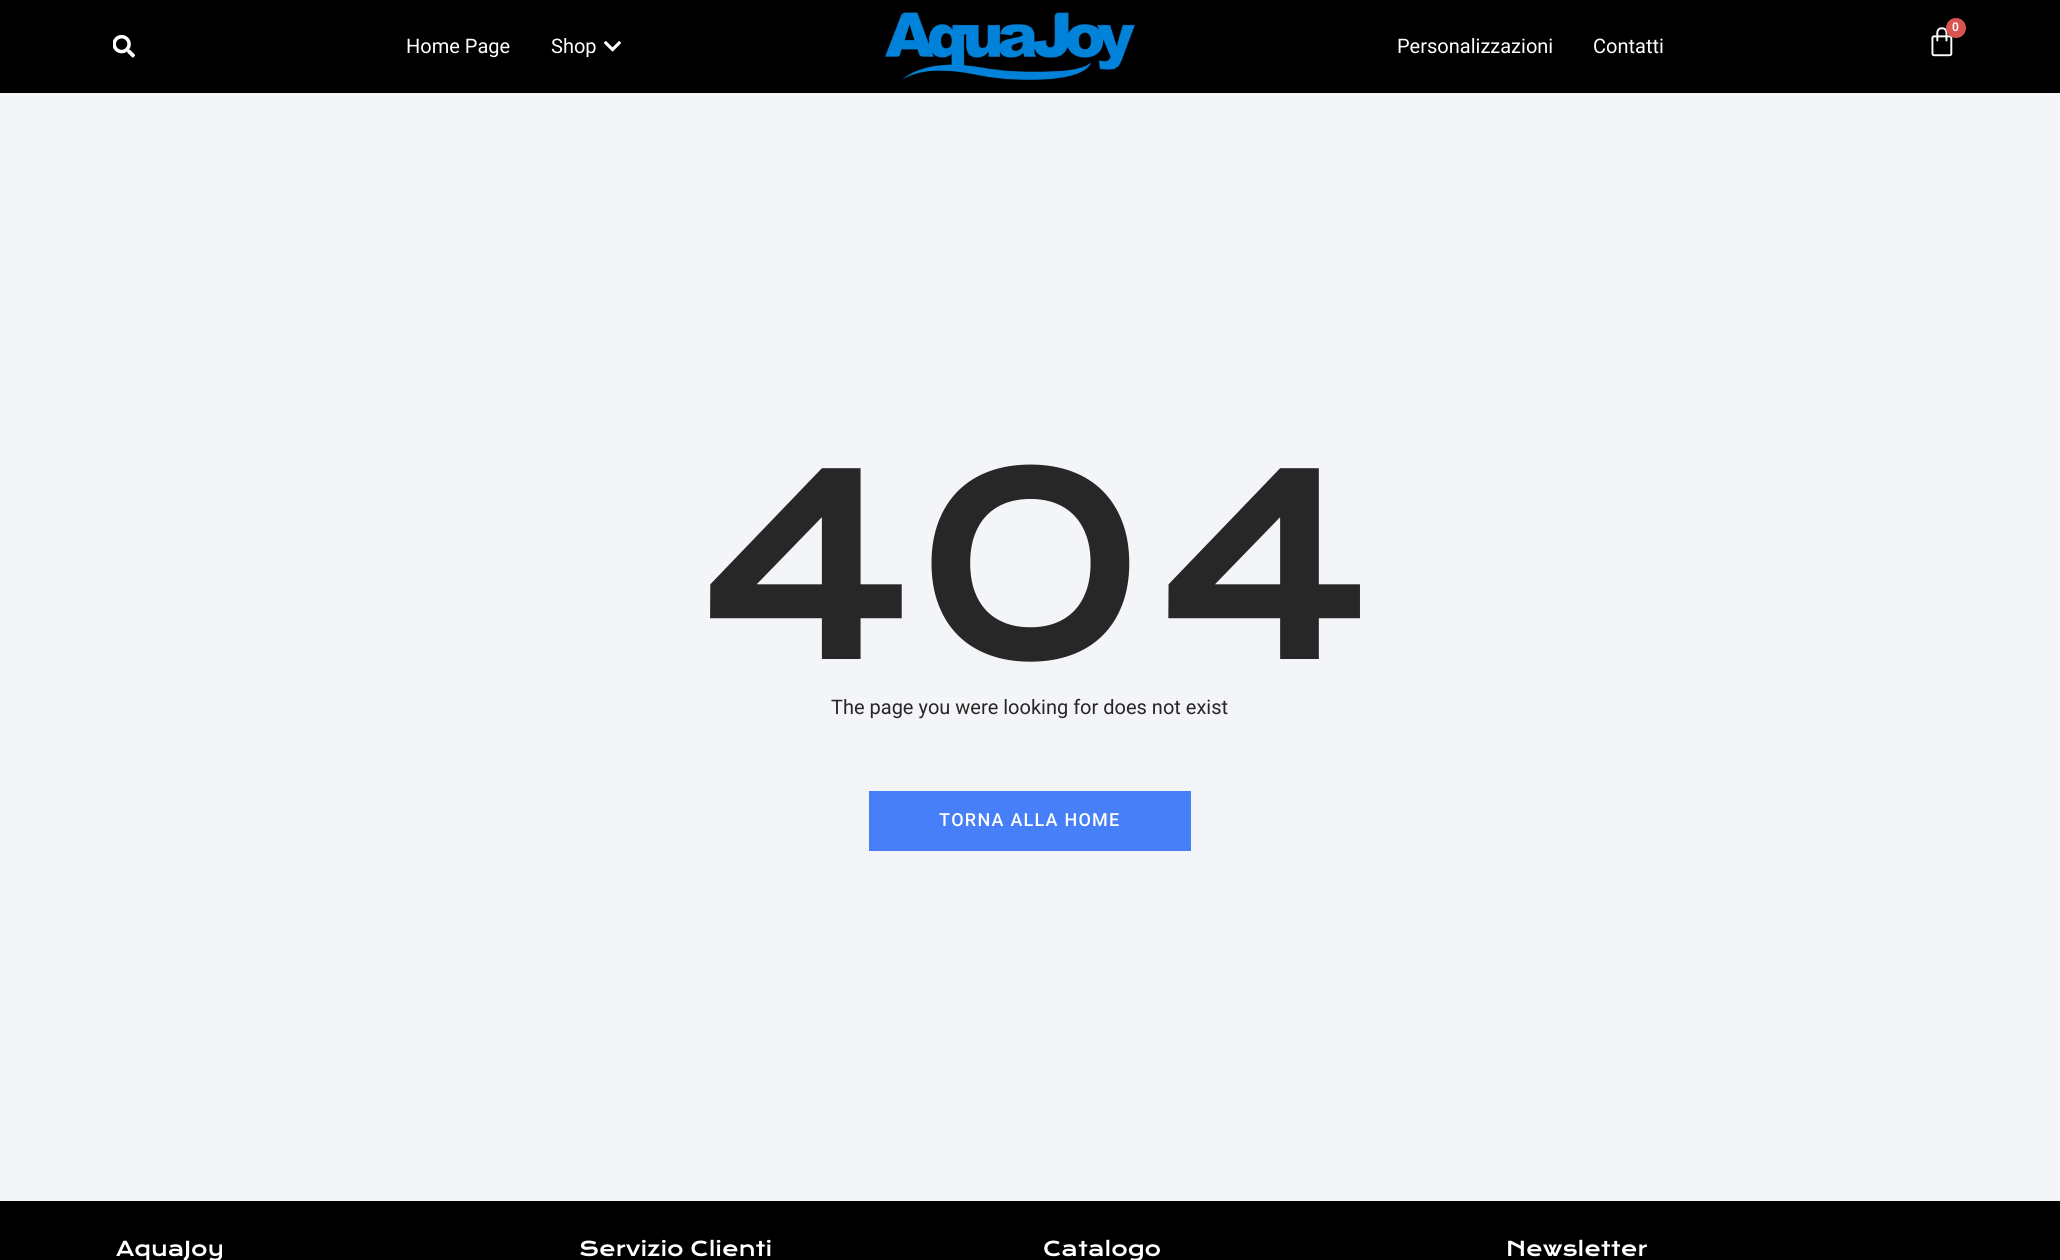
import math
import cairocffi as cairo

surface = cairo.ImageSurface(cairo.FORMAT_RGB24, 2060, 1260)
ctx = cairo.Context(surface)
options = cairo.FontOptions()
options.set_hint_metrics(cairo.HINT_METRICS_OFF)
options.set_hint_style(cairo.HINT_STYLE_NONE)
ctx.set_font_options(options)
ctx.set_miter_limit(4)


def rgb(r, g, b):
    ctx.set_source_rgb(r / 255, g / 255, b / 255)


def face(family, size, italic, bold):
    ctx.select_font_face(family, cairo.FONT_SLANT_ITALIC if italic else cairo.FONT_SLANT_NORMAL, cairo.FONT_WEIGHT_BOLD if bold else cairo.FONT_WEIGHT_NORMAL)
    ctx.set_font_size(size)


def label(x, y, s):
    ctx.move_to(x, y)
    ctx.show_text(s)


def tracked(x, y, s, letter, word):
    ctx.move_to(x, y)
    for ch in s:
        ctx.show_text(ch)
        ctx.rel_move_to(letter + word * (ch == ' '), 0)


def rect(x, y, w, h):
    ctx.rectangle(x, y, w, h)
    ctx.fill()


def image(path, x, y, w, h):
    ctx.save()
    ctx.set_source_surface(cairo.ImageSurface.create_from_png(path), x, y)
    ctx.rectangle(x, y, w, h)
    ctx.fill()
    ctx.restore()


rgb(0, 0, 0)
ctx.paint()
image('image0.png', 885, 12, 250, 68)
image('image1.png', 1931, 27, 22, 30)
rgb(217, 83, 79)
ctx.arc(1956, 28, 10, 0, 2 * math.pi)
ctx.fill()
face('Roboto SemiBold', 12, 0, 0)
rgb(255, 255, 255)
label(1952, 31, '0')
image('image2.png', 113, 35, 22, 23)
face('Roboto', 20, 0, 0)
label(406, 53, 'Home Page')
label(551, 53, 'Shop')
image('image3.png', 604, 41, 17, 11)
label(1397, 53, 'Personalizzazioni')
label(1593, 53, 'Contatti')
rgb(243, 245, 248)
rect(0, 93, 2060, 1108)
face('Krona One', 250, 0, 0)
rgb(39, 39, 39)
label(687, 659, '404')
face('Roboto', 20, 0, 0)
label(831, 714, 'The page you were looking for does not exist')
rgb(70, 127, 247)
rect(869, 791, 322, 60)
face('Roboto Medium', 18, 0, 0)
rgb(255, 255, 255)
tracked(939, 826, 'TORNA ALLA HOME', 1.25, 0)
face('Krona One', 20, 0, 0)
label(116, 1256, 'AquaJoy')
label(579, 1256, 'Servizio Clienti')
label(1043, 1256, 'Catalogo')
label(1506, 1256, 'Newsletter')
surface.write_to_png('render.png')
